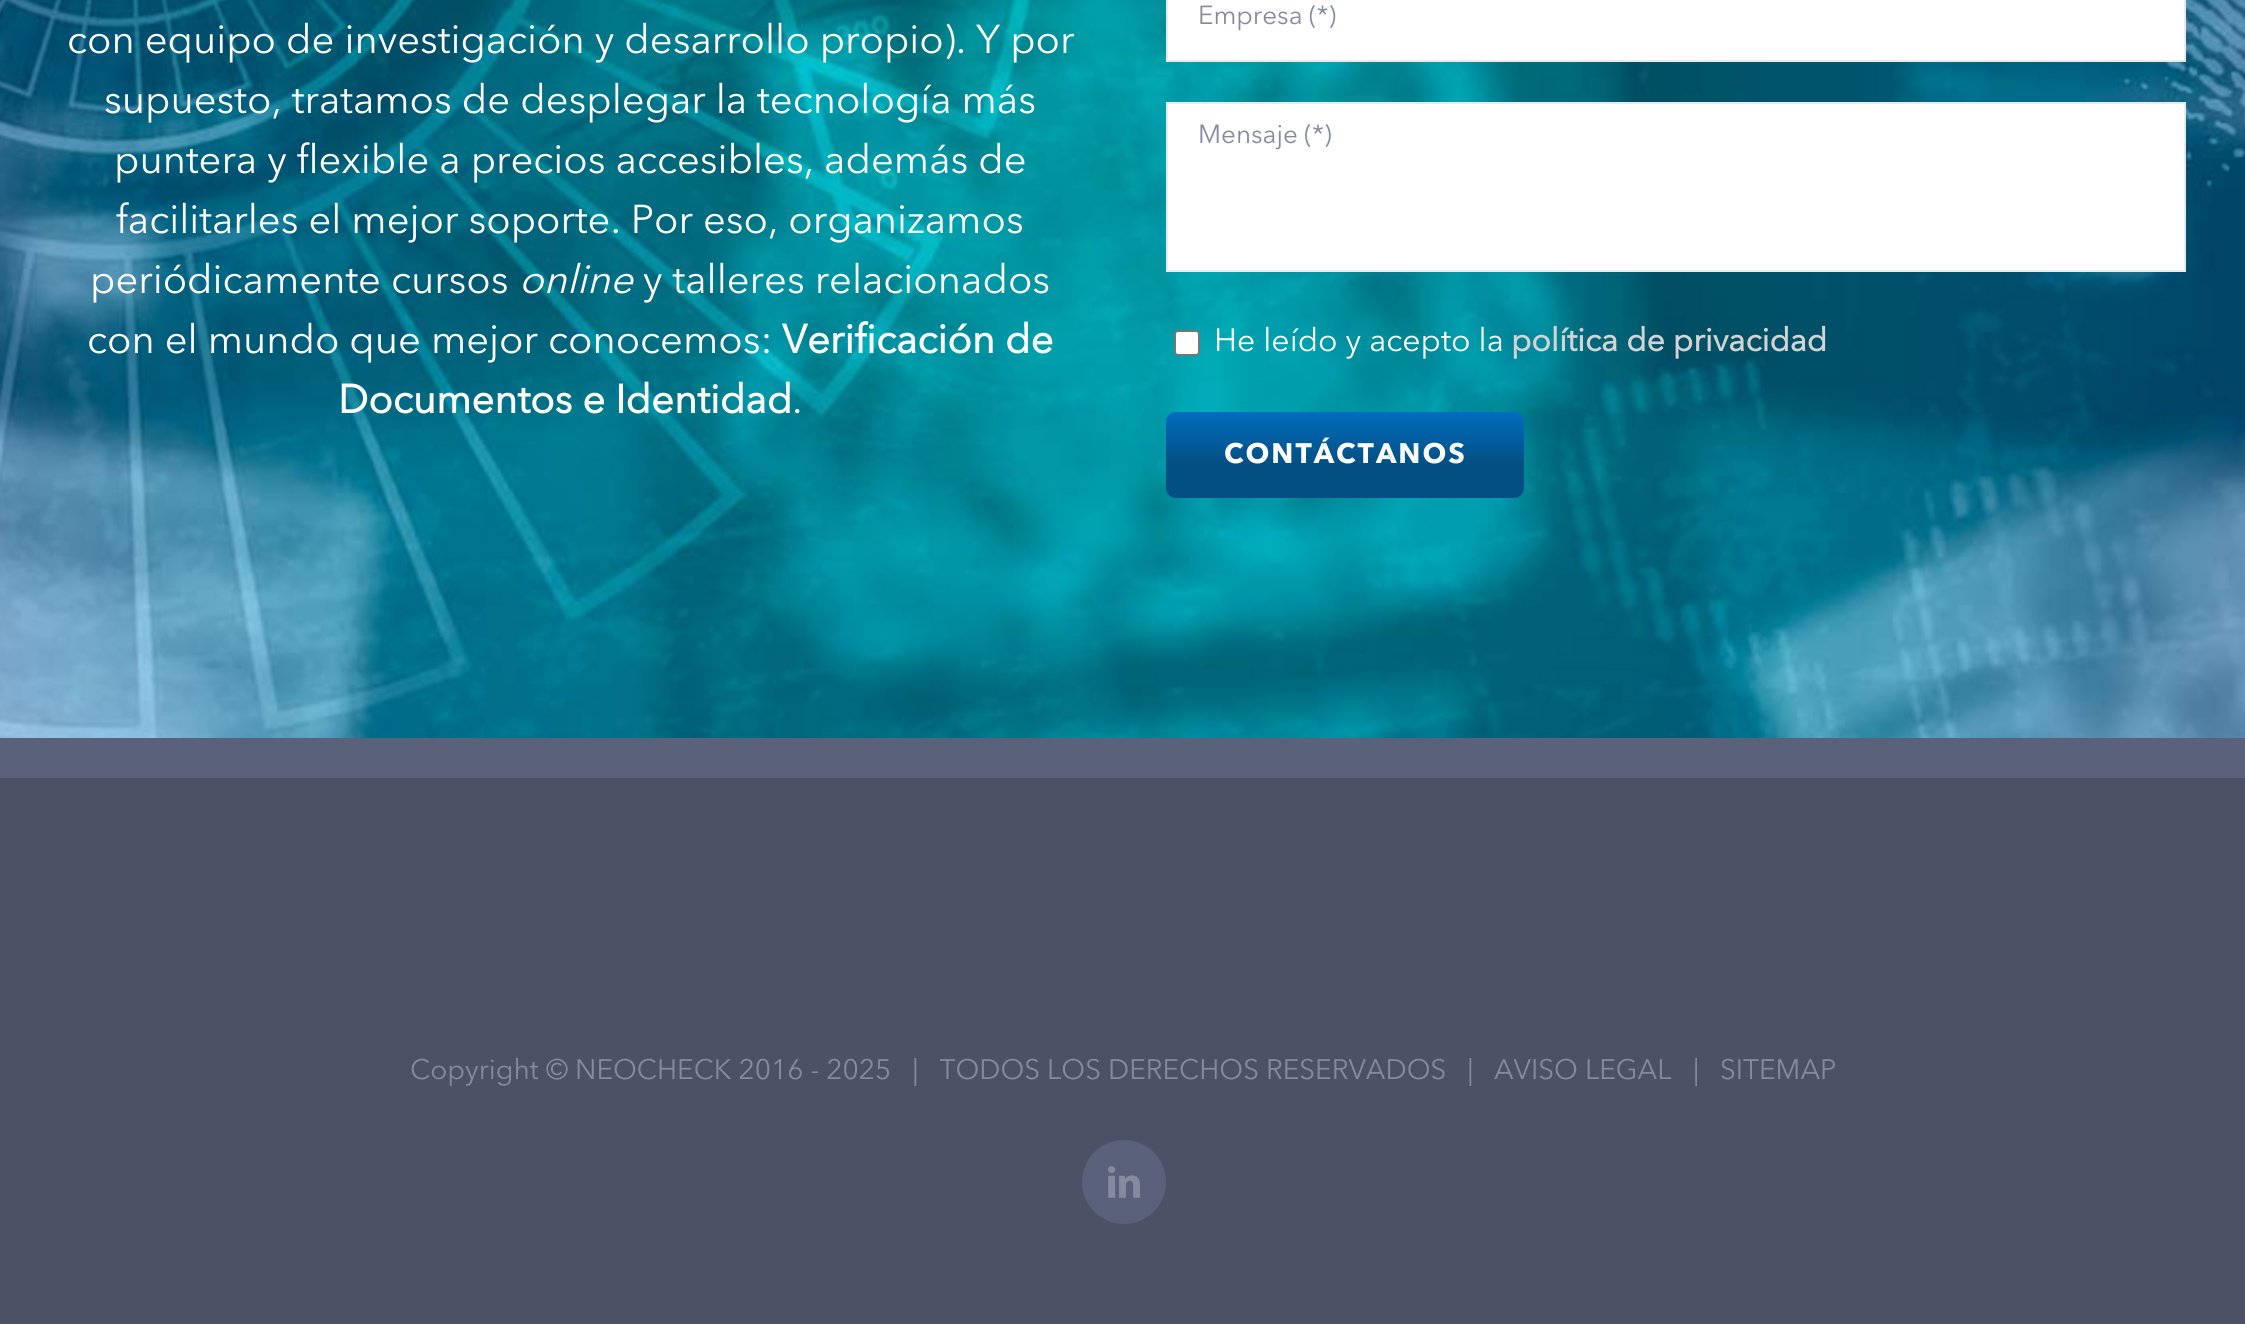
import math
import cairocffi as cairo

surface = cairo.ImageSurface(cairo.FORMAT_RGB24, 2245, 1324)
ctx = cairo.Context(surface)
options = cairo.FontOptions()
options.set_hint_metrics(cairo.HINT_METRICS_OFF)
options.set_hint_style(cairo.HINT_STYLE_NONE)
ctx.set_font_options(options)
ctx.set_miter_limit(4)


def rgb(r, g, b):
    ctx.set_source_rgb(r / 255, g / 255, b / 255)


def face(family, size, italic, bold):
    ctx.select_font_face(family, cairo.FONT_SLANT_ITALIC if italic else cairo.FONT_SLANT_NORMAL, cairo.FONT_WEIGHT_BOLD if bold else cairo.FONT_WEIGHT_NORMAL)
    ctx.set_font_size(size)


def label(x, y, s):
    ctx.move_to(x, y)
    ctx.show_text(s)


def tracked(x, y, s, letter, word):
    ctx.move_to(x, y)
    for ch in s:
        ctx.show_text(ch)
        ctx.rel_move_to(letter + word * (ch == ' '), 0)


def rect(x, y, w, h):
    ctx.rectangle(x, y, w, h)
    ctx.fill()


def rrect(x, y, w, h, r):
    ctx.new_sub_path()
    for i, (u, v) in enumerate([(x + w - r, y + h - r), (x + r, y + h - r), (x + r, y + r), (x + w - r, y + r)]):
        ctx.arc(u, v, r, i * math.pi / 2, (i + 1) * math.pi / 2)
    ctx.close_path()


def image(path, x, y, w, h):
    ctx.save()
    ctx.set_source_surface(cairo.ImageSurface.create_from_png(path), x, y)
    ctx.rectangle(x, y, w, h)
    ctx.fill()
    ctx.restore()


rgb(255, 255, 255)
ctx.paint()
image('image0.png', 0, 0, 2245, 738)
face('Avenir Next', 40, 0, 0)
rgb(255, 255, 255)
label(67, 53, 'con equipo de investigación y desarrollo propio). Y por')
label(104, 113, 'supuesto, tratamos de desplegar la tecnología más')
label(114, 173, 'puntera y flexible a precios accesibles, además de')
label(116, 233, 'facilitarles el mejor soporte. Por eso, organizamos')
label(90, 293, 'periódicamente cursos')
face('Avenir Next', 40, 1, 0)
label(519, 293, 'online')
face('Avenir Next', 40, 0, 0)
label(643, 293, 'y talleres relacionados')
label(87, 353, 'con el mundo que mejor conocemos:')
face('Avenir Next', 40, 0, 1)
label(782, 353, 'Verificación de')
label(338, 413, 'Documentos e Identidad')
face('Avenir Next', 40, 0, 0)
label(792, 413, '.')
ctx.rectangle(1167, -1, 1018, 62)
ctx.fill_preserve()
rgb(234, 234, 234)
ctx.stroke()
face('Avenir Next', 26, 0, 0)
rgb(133, 138, 159)
label(1198, 24, 'Empresa (*)')
rgb(255, 255, 255)
ctx.rectangle(1167, 103, 1018, 168)
ctx.fill_preserve()
rgb(234, 234, 234)
ctx.stroke()
rgb(133, 138, 159)
label(1198, 143, 'Mensaje (*)')
rgb(255, 255, 255)
rrect(1175, 331, 24, 24, 3)
ctx.fill_preserve()
rgb(118, 118, 118)
ctx.stroke()
face('Avenir Next', 32, 0, 0)
rgb(255, 255, 255)
label(1214, 351, 'He leído y acepto la')
face('Avenir Next', 32, 0, 1)
rgb(211, 211, 211)
label(1511, 351, 'política de privacidad')
gradient = cairo.LinearGradient(1345, 412, 1345, 498)
gradient.add_color_stop_rgba(0, 0.004, 0.427, 0.749, 1)
gradient.add_color_stop_rgba(0.6, 0.012, 0.31, 0.518, 1)
ctx.set_source(gradient)
rrect(1166, 412, 358, 86, 10)
ctx.fill()
face('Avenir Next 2', 28, 0, 1)
rgb(255, 255, 255)
tracked(1224, 463, 'CONTÁCTANOS', 2, 0)
rgb(76, 81, 102)
rect(0, 778, 2245, 546)
rgb(90, 97, 122)
rect(0, 738, 2245, 40)
face('Avenir Next', 28, 0, 0)
rgb(133, 138, 159)
label(410, 1079, 'Copyright © NEOCHECK 2016 - 2025   |   TODOS LOS DERECHOS RESERVADOS   |')
label(1494, 1079, 'AVISO LEGAL')
label(1693, 1079, '|')
label(1720, 1079, 'SITEMAP')
rgb(90, 97, 122)
ctx.new_path()
ctx.arc(1124, 1182, 41, 0, 2 * math.pi)
ctx.fill_preserve()
ctx.stroke()
image('image1.png', 1108, 1166, 32, 32)
surface.write_to_png('render.png')
